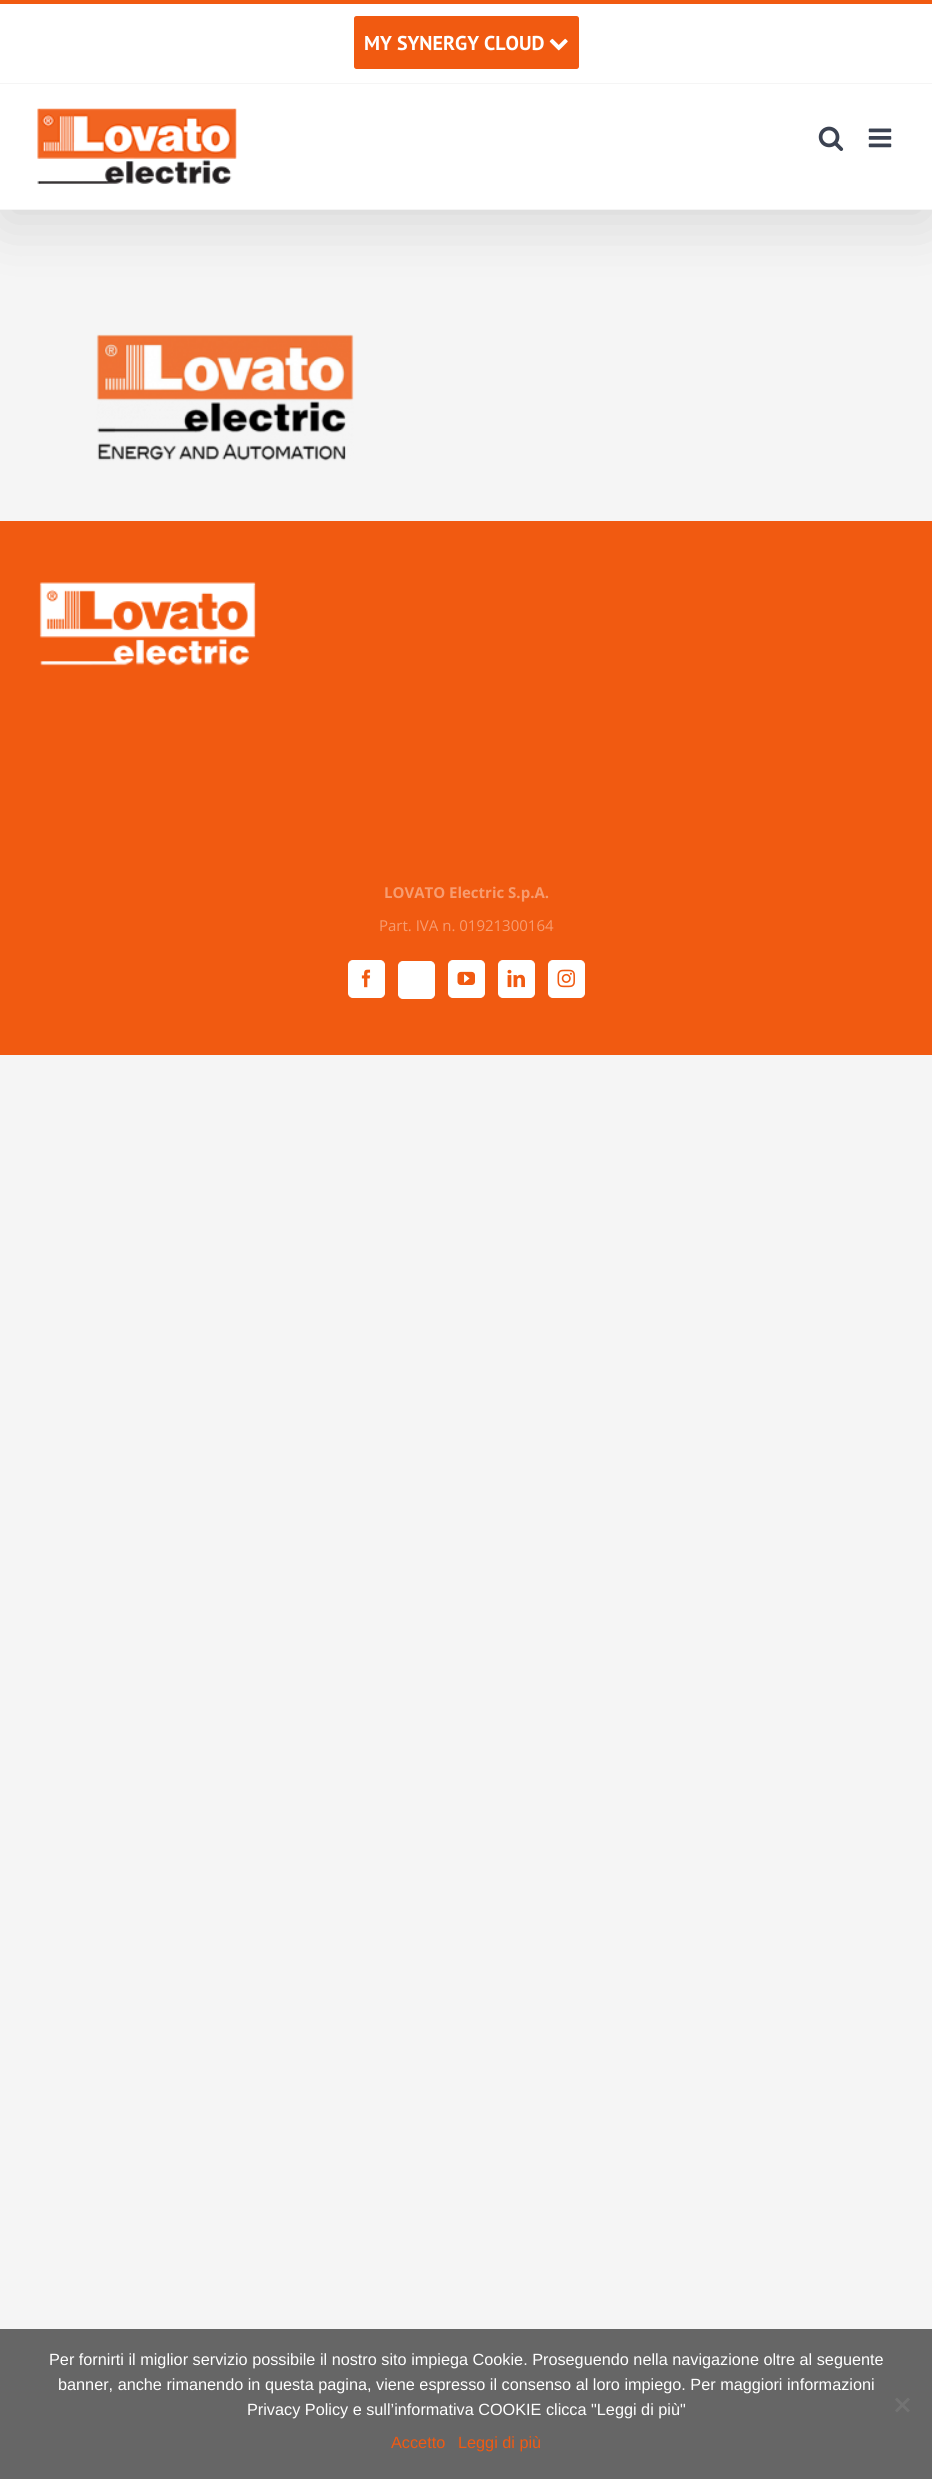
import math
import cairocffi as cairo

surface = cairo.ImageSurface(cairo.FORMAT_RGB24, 932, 2479)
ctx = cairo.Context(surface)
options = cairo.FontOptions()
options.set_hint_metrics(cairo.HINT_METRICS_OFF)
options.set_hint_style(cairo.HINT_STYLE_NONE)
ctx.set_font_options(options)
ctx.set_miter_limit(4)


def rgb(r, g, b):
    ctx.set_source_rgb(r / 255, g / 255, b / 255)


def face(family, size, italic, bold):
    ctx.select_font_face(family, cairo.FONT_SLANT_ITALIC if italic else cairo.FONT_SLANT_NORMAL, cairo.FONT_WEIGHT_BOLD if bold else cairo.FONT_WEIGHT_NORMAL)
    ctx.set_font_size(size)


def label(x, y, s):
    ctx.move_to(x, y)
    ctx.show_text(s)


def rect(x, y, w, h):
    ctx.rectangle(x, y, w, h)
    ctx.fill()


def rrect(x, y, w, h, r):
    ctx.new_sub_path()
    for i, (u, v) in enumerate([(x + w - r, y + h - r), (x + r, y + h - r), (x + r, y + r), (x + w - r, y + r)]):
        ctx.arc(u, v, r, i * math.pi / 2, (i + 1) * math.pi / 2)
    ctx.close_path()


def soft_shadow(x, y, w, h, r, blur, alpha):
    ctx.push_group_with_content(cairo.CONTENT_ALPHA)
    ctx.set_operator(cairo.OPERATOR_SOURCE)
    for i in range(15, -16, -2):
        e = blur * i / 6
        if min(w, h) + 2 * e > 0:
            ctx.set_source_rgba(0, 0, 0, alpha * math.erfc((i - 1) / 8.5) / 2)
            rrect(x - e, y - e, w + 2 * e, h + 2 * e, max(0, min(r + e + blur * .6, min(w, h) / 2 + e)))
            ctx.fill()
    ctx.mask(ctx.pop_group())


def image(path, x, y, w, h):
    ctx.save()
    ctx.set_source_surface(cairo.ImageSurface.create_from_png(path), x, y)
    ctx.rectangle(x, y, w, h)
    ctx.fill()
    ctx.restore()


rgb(245, 245, 245)
ctx.paint()
rgb(0, 0, 0)
soft_shadow(3, 15, 927, 205, 0, 31, 0.14)
rgb(255, 255, 255)
rect(0, 4, 932, 79)
rgb(241, 90, 17)
rect(0, 0, 932, 4)
rgb(245, 245, 245)
rect(0, 83, 932, 1)
rgb(241, 90, 17)
rrect(354, 16, 225, 53, 2.5)
ctx.fill()
face('PT Sans', 20, 0, 1)
rgb(255, 255, 255)
label(364, 50, 'MY SYNERGY CLOUD')
image('image0.png', 549, 38, 19, 13)
rect(0, 84, 932, 125)
rgb(245, 245, 245)
rect(0, 209, 932, 1)
image('image1.png', 37, 108, 200, 76)
image('image2.png', 818, 126, 26, 25)
image('image3.png', 868, 128, 24, 20)
image('image4.png', 96, 334, 258, 127)
rgb(241, 90, 17)
rect(0, 521, 932, 534)
image('image5.png', 39, 582, 217, 84)
face('Open Sans', 15, 0, 1)
rgb(247, 156, 112)
label(384, 898, 'LOVATO Electric S.p.A.')
face('Open Sans', 15, 0, 0)
label(379, 931, 'Part. IVA n. 01921300164')
rgb(255, 255, 255)
rrect(348.5, 960.5, 36, 37, 4.5)
ctx.fill_preserve()
ctx.set_line_width(1)
ctx.stroke()
image('image6.png', 361, 969, 10, 19)
rrect(398.5, 961.5, 36, 37, 4.5)
ctx.fill_preserve()
ctx.stroke()
rrect(448.5, 960.5, 36, 37, 4.5)
ctx.fill_preserve()
ctx.stroke()
image('image7.png', 457, 971, 18, 14)
rrect(498.5, 960.5, 36, 37, 4.5)
ctx.fill_preserve()
ctx.stroke()
image('image8.png', 507, 969, 18, 19)
rrect(548.5, 960.5, 36, 37, 4.5)
ctx.fill_preserve()
ctx.stroke()
image('image9.png', 557, 969, 18, 19)
rgb(102, 102, 102)
rect(0, 2329, 932, 150)
face('Liberation Sans', 16.25, 0, 0)
rgb(255, 255, 255)
label(49, 2365, 'Per fornirti il miglior servizio possibile il nostro sito impiega Cookie. Proseguendo nella navigazione oltre al seguente')
label(58, 2390, 'banner, anche rimanendo in questa pagina, viene espresso il consenso al loro impiego. Per maggiori informazioni')
label(247, 2415, 'Privacy Policy e sull’informativa COOKIE clicca "Leggi di più"')
rgb(115, 115, 115)
ctx.new_path()
ctx.move_to(908, 2397.5)
ctx.line_to(910, 2399.5)
ctx.line_to(897, 2412.5)
ctx.line_to(895, 2410.5)
ctx.close_path()
ctx.fill()
ctx.new_path()
ctx.move_to(895, 2399.5)
ctx.line_to(897, 2397.5)
ctx.line_to(910, 2410.5)
ctx.line_to(908, 2412.5)
ctx.close_path()
ctx.fill()
rgb(241, 90, 17)
label(391, 2448, 'Accetto')
label(458, 2448, 'Leggi di più')
surface.write_to_png('render.png')
